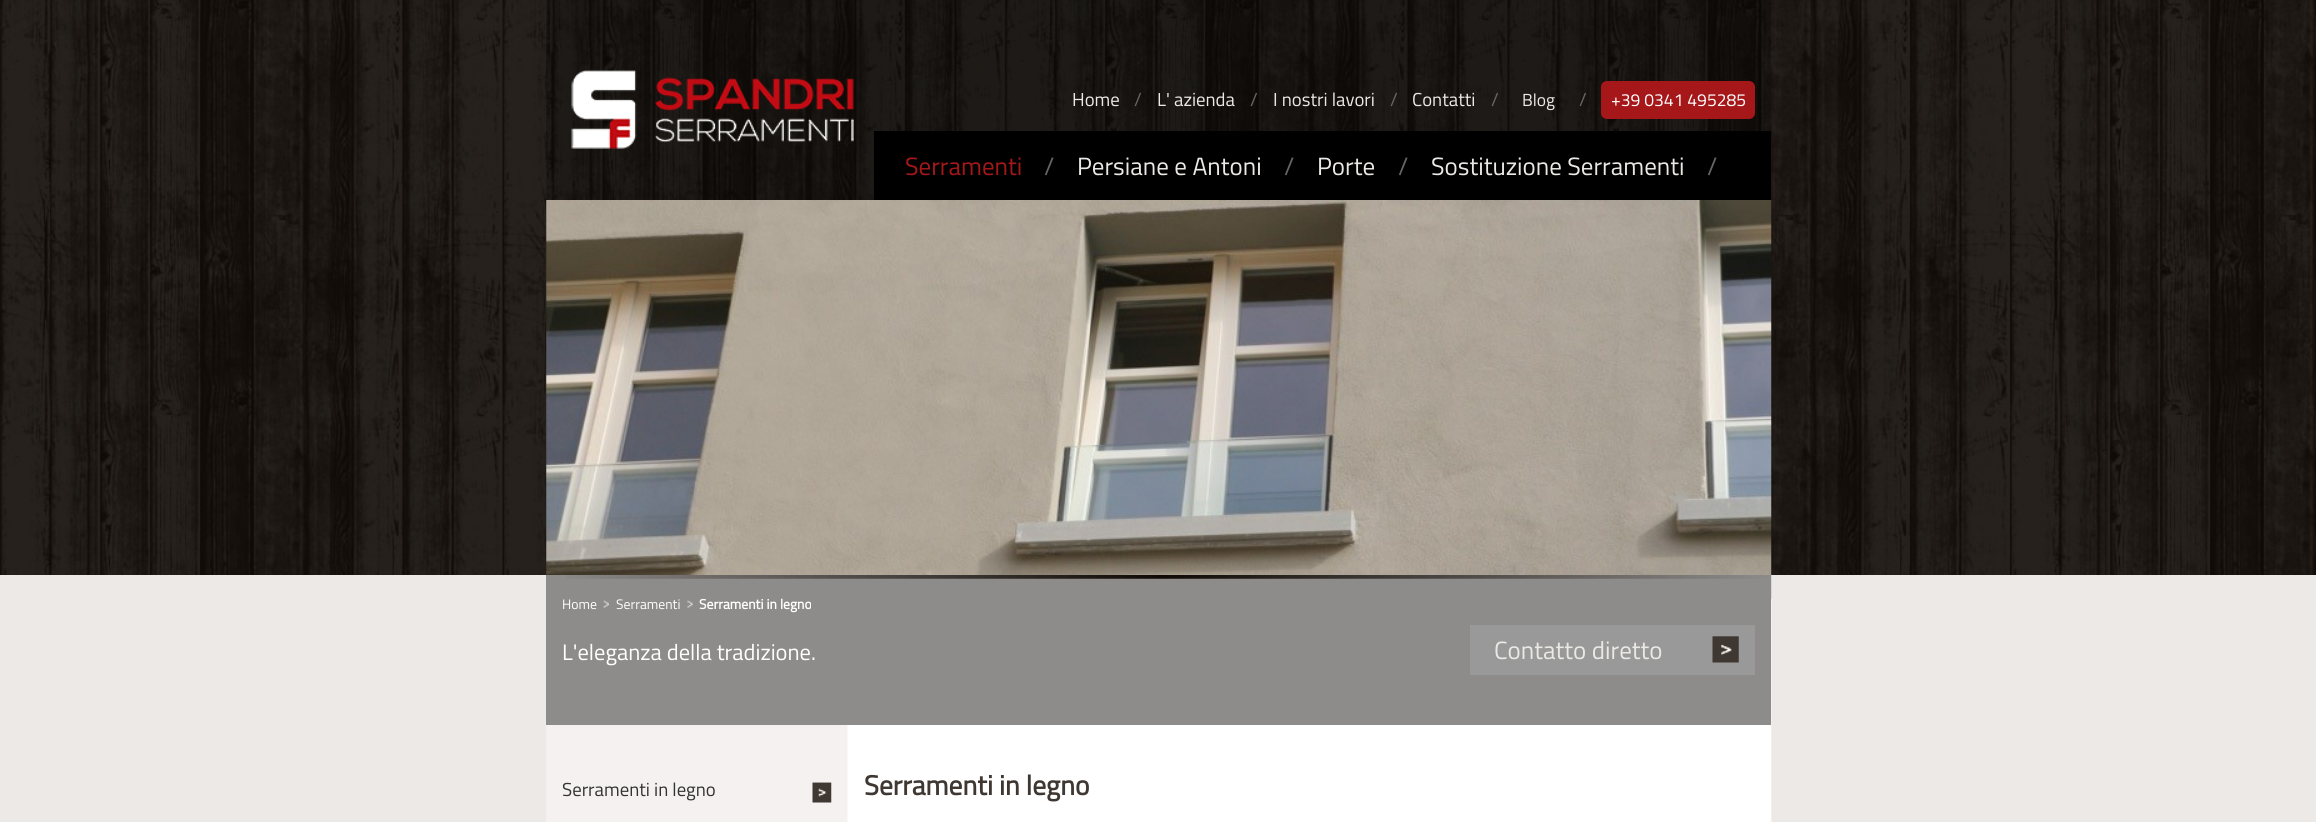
import math
import cairocffi as cairo

surface = cairo.ImageSurface(cairo.FORMAT_RGB24, 2316, 822)
ctx = cairo.Context(surface)
options = cairo.FontOptions()
options.set_hint_metrics(cairo.HINT_METRICS_OFF)
options.set_hint_style(cairo.HINT_STYLE_NONE)
ctx.set_font_options(options)
ctx.set_miter_limit(4)


def rgb(r, g, b):
    ctx.set_source_rgb(r / 255, g / 255, b / 255)


def face(family, size, italic, bold):
    ctx.select_font_face(family, cairo.FONT_SLANT_ITALIC if italic else cairo.FONT_SLANT_NORMAL, cairo.FONT_WEIGHT_BOLD if bold else cairo.FONT_WEIGHT_NORMAL)
    ctx.set_font_size(size)


def label(x, y, s):
    ctx.move_to(x, y)
    ctx.show_text(s)


def rect(x, y, w, h):
    ctx.rectangle(x, y, w, h)
    ctx.fill()


def rrect(x, y, w, h, r):
    ctx.new_sub_path()
    for i, (u, v) in enumerate([(x + w - r, y + h - r), (x + r, y + h - r), (x + r, y + r), (x + w - r, y + r)]):
        ctx.arc(u, v, r, i * math.pi / 2, (i + 1) * math.pi / 2)
    ctx.close_path()


def image(path, x, y, w, h):
    ctx.save()
    ctx.set_source_surface(cairo.ImageSurface.create_from_png(path), x, y)
    ctx.rectangle(x, y, w, h)
    ctx.fill()
    ctx.restore()


rgb(255, 255, 255)
ctx.paint()
image('image0.png', 0, 0, 2316, 575)
ctx.set_source_rgba(0, 0, 0, 0.2)
rect(546, 0, 1225, 200)
image('image1.png', 571, 70, 283, 79)
face('Titillium Web', 18.75, 0, 0)
rgb(235, 233, 229)
label(1072, 106, 'Home')
rgb(102, 102, 102)
label(1134, 106, '/')
rgb(235, 233, 229)
label(1157, 106, 'L\' azienda')
rgb(102, 102, 102)
label(1250, 106, '/')
rgb(235, 233, 229)
label(1273, 106, 'I nostri lavori')
rgb(102, 102, 102)
label(1390, 106, '/')
rgb(235, 233, 229)
label(1412, 106, 'Contatti')
rgb(102, 102, 102)
label(1491, 106, '/')
face('Titillium Web', 17.5, 0, 0)
rgb(235, 233, 229)
label(1522, 106, 'Blog')
face('Titillium Web', 18.75, 0, 0)
rgb(102, 102, 102)
label(1579, 106, '/')
rgb(166, 23, 25)
rrect(1601, 81, 154, 38, 6)
ctx.fill()
face('Titillium Web', 17.5, 0, 0)
rgb(255, 255, 255)
label(1611, 106, '+39 0341 495285')
rgb(0, 0, 0)
rect(874, 131, 897, 69)
face('Titillium Web', 25, 0, 0)
rgb(166, 23, 25)
label(905, 175, 'Serramenti')
rgb(102, 102, 102)
label(1044, 175, '/')
rgb(235, 233, 229)
label(1077, 175, 'Persiane e Antoni')
rgb(102, 102, 102)
label(1284, 175, '/')
rgb(235, 233, 229)
label(1317, 175, 'Porte')
rgb(102, 102, 102)
label(1398, 175, '/')
rgb(235, 233, 229)
label(1431, 175, 'Sostituzione Serramenti')
rgb(102, 102, 102)
label(1707, 175, '/')
rgb(237, 233, 231)
rect(0, 575, 2316, 247)
image('image2.png', 546, 575, 1226, 247)
rgb(142, 140, 139)
rect(546, 575, 1225, 150)
image('image3.png', 566, 575, 1206, 24)
face('Titillium Web', 13.75, 0, 0)
rgb(255, 255, 255)
label(562, 609, 'Home')
image('image4.png', 603, 600, 6, 8)
label(616, 609, 'Serramenti')
image('image5.png', 686, 600, 7, 8)
face('Titillium Web', 13.75, 0, 1)
label(699, 609, 'Serramenti in legno')
face('Titillium Web', 22.5, 0, 0)
label(562, 660, 'L\'eleganza della tradizione.')
image('image6.png', 812, 782, 20, 21)
face('Titillium Web', 18.75, 0, 0)
rgb(51, 51, 51)
label(562, 796, 'Serramenti in legno')
face('Titillium Web', 27.5, 0, 1)
rgb(63, 55, 49)
label(864, 795, 'Serramenti in legno')
image('image7.png', 546, 200, 1226, 375)
rgb(153, 153, 153)
rect(1470, 625, 285, 50)
image('image8.png', 1712, 636, 27, 27)
face('Titillium Web', 25, 0, 0)
rgb(235, 233, 229)
label(1494, 659, 'Contatto diretto')
surface.write_to_png('render.png')
